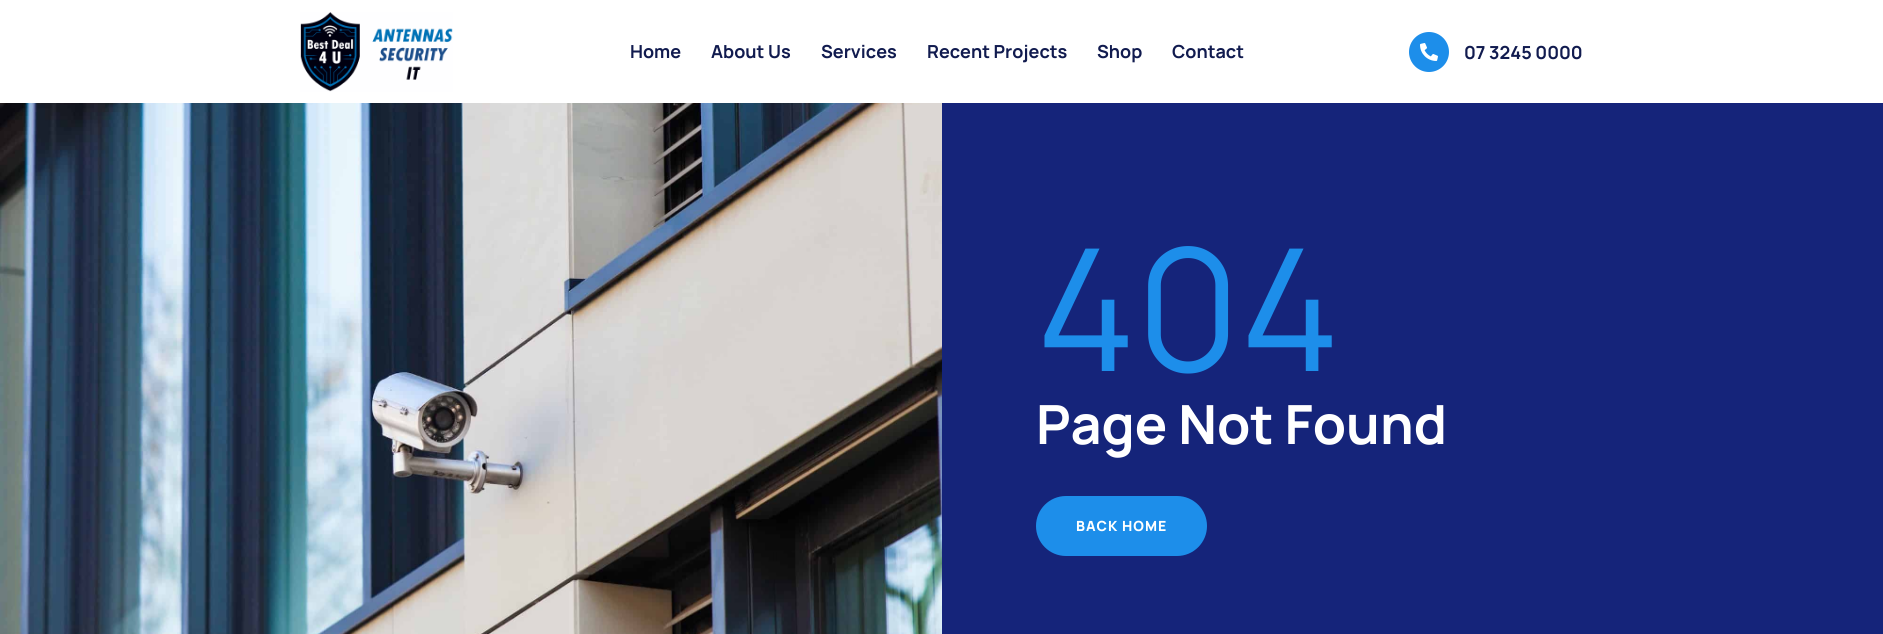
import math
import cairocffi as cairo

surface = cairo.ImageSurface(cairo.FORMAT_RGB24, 1883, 634)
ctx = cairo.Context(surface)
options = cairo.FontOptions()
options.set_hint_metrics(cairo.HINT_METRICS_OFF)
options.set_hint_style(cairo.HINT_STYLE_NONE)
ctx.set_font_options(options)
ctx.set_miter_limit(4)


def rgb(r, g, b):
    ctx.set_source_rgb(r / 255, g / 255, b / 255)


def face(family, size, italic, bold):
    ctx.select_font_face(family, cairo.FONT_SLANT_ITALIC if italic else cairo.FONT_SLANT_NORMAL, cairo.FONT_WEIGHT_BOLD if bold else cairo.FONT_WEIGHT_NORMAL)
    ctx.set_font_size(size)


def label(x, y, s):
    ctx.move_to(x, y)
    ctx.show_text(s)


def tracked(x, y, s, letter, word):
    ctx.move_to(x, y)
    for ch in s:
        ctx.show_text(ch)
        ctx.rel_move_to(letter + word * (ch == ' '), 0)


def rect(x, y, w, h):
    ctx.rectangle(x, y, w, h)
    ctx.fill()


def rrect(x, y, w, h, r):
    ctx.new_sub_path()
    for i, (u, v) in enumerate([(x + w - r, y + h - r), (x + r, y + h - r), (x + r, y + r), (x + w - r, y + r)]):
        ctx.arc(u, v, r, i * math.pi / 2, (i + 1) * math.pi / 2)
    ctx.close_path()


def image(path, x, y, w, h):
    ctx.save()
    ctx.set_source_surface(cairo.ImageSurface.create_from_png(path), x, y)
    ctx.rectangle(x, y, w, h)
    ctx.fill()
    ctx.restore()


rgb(255, 255, 255)
ctx.paint()
image('image0.png', 300, 12, 153, 80)
face('Manrope', 18, 0, 1)
rgb(17, 27, 79)
label(630, 58, 'Home')
label(711, 58, 'About Us')
label(821, 58, 'Services')
label(927, 58, 'Recent Projects')
label(1097, 58, 'Shop')
label(1172, 58, 'Contact')
rgb(29, 142, 234)
ctx.new_path()
ctx.arc(1429, 52, 20, 0, 2 * math.pi)
ctx.fill()
image('image1.png', 1420, 43, 18, 18)
rgb(17, 27, 79)
label(1464, 59, '07 3245 0000')
image('image2.png', 0, 103, 942, 531)
rgb(21, 36, 122)
rect(942, 103, 941, 531)
face('Manrope', 170, 0, 0)
rgb(29, 142, 234)
label(1036, 371, '404')
face('Manrope', 54, 0, 1)
rgb(255, 255, 255)
label(1036, 444, 'Page Not Found')
rgb(29, 142, 234)
rrect(1036, 496, 171, 60, 30)
ctx.fill()
face('Manrope ExtraBold', 14, 0, 0)
rgb(255, 255, 255)
tracked(1076, 531, 'BACK HOME', 1, 0)
surface.write_to_png('render.png')
